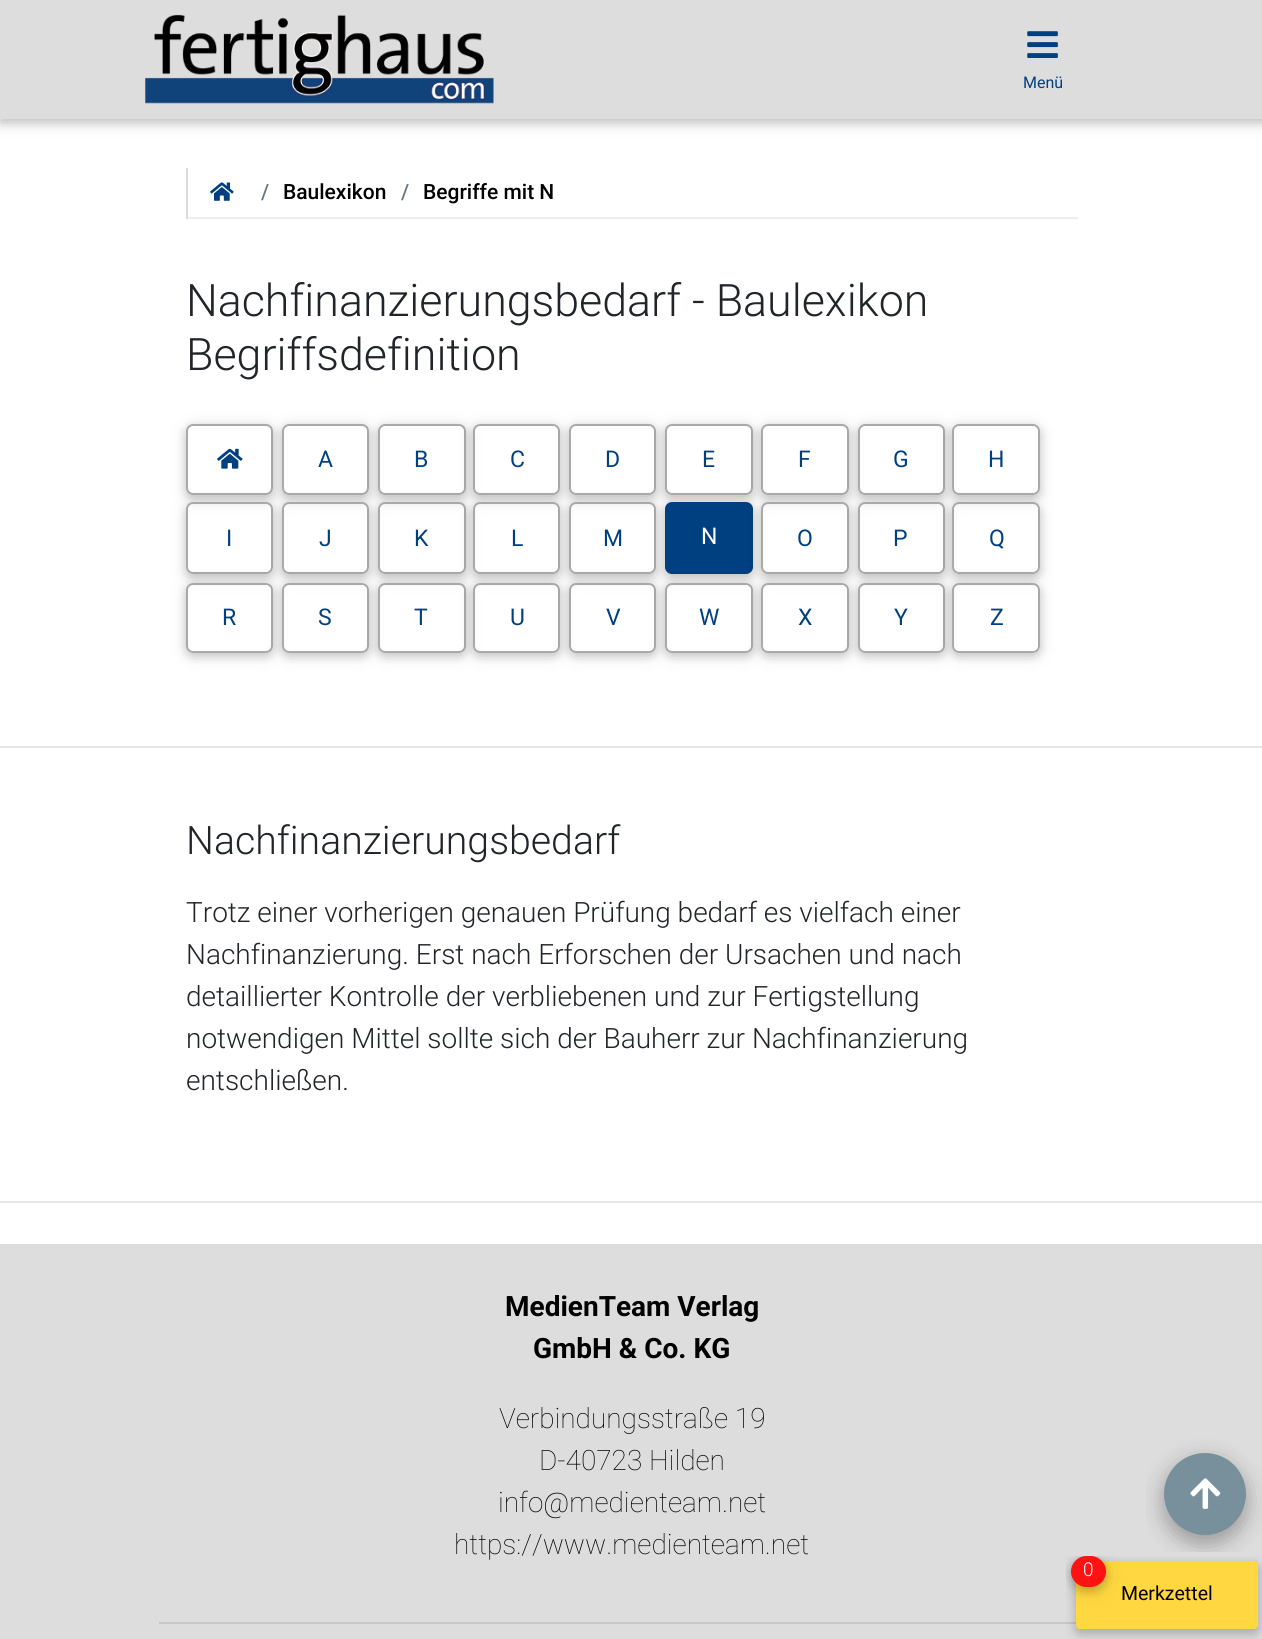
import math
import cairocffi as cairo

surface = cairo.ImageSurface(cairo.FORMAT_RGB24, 1262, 1639)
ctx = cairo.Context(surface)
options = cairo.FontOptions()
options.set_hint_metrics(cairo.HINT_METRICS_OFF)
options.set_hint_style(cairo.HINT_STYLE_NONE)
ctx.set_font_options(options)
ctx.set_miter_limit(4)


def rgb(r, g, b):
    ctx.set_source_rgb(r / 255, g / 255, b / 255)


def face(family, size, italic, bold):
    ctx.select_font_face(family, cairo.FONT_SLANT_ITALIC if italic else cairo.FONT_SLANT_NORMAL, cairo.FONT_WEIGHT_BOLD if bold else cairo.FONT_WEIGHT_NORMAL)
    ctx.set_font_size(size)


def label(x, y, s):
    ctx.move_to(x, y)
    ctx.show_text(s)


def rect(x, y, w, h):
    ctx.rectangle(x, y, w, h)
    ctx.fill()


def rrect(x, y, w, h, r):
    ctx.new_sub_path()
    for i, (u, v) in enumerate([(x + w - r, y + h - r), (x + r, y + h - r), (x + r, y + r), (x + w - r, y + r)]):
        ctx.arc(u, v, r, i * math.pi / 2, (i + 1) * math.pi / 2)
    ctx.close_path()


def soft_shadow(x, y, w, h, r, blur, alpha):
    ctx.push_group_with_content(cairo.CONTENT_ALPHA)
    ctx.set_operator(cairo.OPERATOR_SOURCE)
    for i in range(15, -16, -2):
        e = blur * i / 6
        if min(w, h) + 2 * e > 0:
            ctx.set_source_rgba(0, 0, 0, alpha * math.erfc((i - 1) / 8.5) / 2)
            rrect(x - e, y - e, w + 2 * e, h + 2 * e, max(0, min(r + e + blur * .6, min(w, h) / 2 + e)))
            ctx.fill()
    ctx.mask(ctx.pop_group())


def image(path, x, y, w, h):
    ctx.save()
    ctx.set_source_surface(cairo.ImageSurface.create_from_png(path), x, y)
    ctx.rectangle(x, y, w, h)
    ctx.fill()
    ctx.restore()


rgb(255, 255, 255)
ctx.paint()
rgb(0, 0, 0)
soft_shadow(0, 4, 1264, 119, 0, 9, 0.12)
soft_shadow(0, 4, 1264, 119, 0, 4.5, 0.16)
rgb(221, 221, 221)
rect(0, 0, 1262, 119)
image('image0.png', 145, 14, 349, 90)
image('image1.png', 1027, 31, 31, 27)
face('Roboto', 16, 0, 0)
rgb(0, 64, 128)
label(1023, 88, 'Menü')
rgb(238, 238, 238)
rect(186, 217, 892, 2)
rgb(221, 221, 221)
rect(186, 168, 2, 51)
image('image2.png', 210, 182, 24, 19)
face('Roboto Medium', 21, 0, 0)
rgb(108, 117, 125)
label(261, 199, '/')
rgb(0, 0, 0)
label(283, 199, 'Baulexikon')
rgb(108, 117, 125)
label(401, 199, '/')
rgb(0, 0, 0)
label(423, 199, 'Begriffe mit N')
face('Roboto Light', 44.75, 0, 0)
rgb(33, 37, 41)
label(186, 316, 'Nachfinanzierungsbedarf - Baulexikon')
label(186, 370, 'Begriffsdefinition')
ctx.save()
ctx.set_fill_rule(cairo.FILL_RULE_EVEN_ODD)
ctx.new_path()
ctx.move_to(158, 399)
ctx.line_to(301, 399)
ctx.line_to(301, 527)
ctx.line_to(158, 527)
ctx.close_path()
ctx.move_to(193, 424)
ctx.line_to(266, 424)
ctx.curve_to(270, 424, 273, 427, 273, 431)
ctx.line_to(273, 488)
ctx.curve_to(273, 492, 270, 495, 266, 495)
ctx.line_to(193, 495)
ctx.curve_to(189, 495, 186, 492, 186, 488)
ctx.line_to(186, 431)
ctx.curve_to(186, 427, 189, 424, 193, 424)
ctx.close_path()
ctx.clip()
rgb(0, 0, 0)
soft_shadow(186, 427, 87, 72, 7, 9, 0.12)
ctx.restore()
ctx.save()
ctx.set_fill_rule(cairo.FILL_RULE_EVEN_ODD)
ctx.new_path()
ctx.move_to(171, 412)
ctx.line_to(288, 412)
ctx.line_to(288, 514)
ctx.line_to(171, 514)
ctx.close_path()
ctx.move_to(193, 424)
ctx.line_to(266, 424)
ctx.curve_to(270, 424, 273, 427, 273, 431)
ctx.line_to(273, 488)
ctx.curve_to(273, 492, 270, 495, 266, 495)
ctx.line_to(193, 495)
ctx.curve_to(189, 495, 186, 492, 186, 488)
ctx.line_to(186, 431)
ctx.curve_to(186, 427, 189, 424, 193, 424)
ctx.close_path()
ctx.clip()
rgb(0, 0, 0)
soft_shadow(186, 427, 87, 72, 7, 4.5, 0.16)
ctx.restore()
rrect(187, 425, 85, 69, 6)
rgb(169, 169, 169)
ctx.stroke()
image('image3.png', 217, 448, 26, 21)
ctx.save()
ctx.set_fill_rule(cairo.FILL_RULE_EVEN_ODD)
ctx.new_path()
ctx.move_to(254, 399)
ctx.line_to(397, 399)
ctx.line_to(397, 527)
ctx.line_to(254, 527)
ctx.close_path()
ctx.move_to(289, 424)
ctx.line_to(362, 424)
ctx.curve_to(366, 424, 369, 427, 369, 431)
ctx.line_to(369, 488)
ctx.curve_to(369, 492, 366, 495, 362, 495)
ctx.line_to(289, 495)
ctx.curve_to(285, 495, 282, 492, 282, 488)
ctx.line_to(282, 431)
ctx.curve_to(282, 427, 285, 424, 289, 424)
ctx.close_path()
ctx.clip()
rgb(0, 0, 0)
soft_shadow(282, 427, 87, 72, 7, 9, 0.12)
ctx.restore()
ctx.save()
ctx.set_fill_rule(cairo.FILL_RULE_EVEN_ODD)
ctx.new_path()
ctx.move_to(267, 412)
ctx.line_to(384, 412)
ctx.line_to(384, 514)
ctx.line_to(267, 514)
ctx.close_path()
ctx.move_to(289, 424)
ctx.line_to(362, 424)
ctx.curve_to(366, 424, 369, 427, 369, 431)
ctx.line_to(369, 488)
ctx.curve_to(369, 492, 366, 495, 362, 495)
ctx.line_to(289, 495)
ctx.curve_to(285, 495, 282, 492, 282, 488)
ctx.line_to(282, 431)
ctx.curve_to(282, 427, 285, 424, 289, 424)
ctx.close_path()
ctx.clip()
rgb(0, 0, 0)
soft_shadow(282, 427, 87, 72, 7, 4.5, 0.16)
ctx.restore()
rrect(283, 425, 85, 69, 6)
ctx.stroke()
face('Roboto', 23, 0, 0)
rgb(0, 64, 128)
label(318, 467, 'A')
ctx.save()
ctx.set_fill_rule(cairo.FILL_RULE_EVEN_ODD)
ctx.new_path()
ctx.move_to(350, 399)
ctx.line_to(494, 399)
ctx.line_to(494, 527)
ctx.line_to(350, 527)
ctx.close_path()
ctx.move_to(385, 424)
ctx.line_to(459, 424)
ctx.curve_to(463, 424, 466, 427, 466, 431)
ctx.line_to(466, 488)
ctx.curve_to(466, 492, 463, 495, 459, 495)
ctx.line_to(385, 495)
ctx.curve_to(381, 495, 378, 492, 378, 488)
ctx.line_to(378, 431)
ctx.curve_to(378, 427, 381, 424, 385, 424)
ctx.close_path()
ctx.clip()
rgb(0, 0, 0)
soft_shadow(378, 427, 88, 72, 7, 9, 0.12)
ctx.restore()
ctx.save()
ctx.set_fill_rule(cairo.FILL_RULE_EVEN_ODD)
ctx.new_path()
ctx.move_to(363, 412)
ctx.line_to(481, 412)
ctx.line_to(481, 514)
ctx.line_to(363, 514)
ctx.close_path()
ctx.move_to(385, 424)
ctx.line_to(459, 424)
ctx.curve_to(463, 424, 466, 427, 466, 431)
ctx.line_to(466, 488)
ctx.curve_to(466, 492, 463, 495, 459, 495)
ctx.line_to(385, 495)
ctx.curve_to(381, 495, 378, 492, 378, 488)
ctx.line_to(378, 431)
ctx.curve_to(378, 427, 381, 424, 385, 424)
ctx.close_path()
ctx.clip()
rgb(0, 0, 0)
soft_shadow(378, 427, 88, 72, 7, 4.5, 0.16)
ctx.restore()
rrect(379, 425, 86, 69, 6)
rgb(169, 169, 169)
ctx.stroke()
rgb(0, 64, 128)
label(414, 467, 'B')
ctx.save()
ctx.set_fill_rule(cairo.FILL_RULE_EVEN_ODD)
ctx.new_path()
ctx.move_to(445, 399)
ctx.line_to(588, 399)
ctx.line_to(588, 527)
ctx.line_to(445, 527)
ctx.close_path()
ctx.move_to(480, 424)
ctx.line_to(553, 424)
ctx.curve_to(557, 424, 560, 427, 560, 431)
ctx.line_to(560, 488)
ctx.curve_to(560, 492, 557, 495, 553, 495)
ctx.line_to(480, 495)
ctx.curve_to(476, 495, 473, 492, 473, 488)
ctx.line_to(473, 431)
ctx.curve_to(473, 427, 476, 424, 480, 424)
ctx.close_path()
ctx.clip()
rgb(0, 0, 0)
soft_shadow(473, 427, 87, 72, 7, 9, 0.12)
ctx.restore()
ctx.save()
ctx.set_fill_rule(cairo.FILL_RULE_EVEN_ODD)
ctx.new_path()
ctx.move_to(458, 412)
ctx.line_to(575, 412)
ctx.line_to(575, 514)
ctx.line_to(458, 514)
ctx.close_path()
ctx.move_to(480, 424)
ctx.line_to(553, 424)
ctx.curve_to(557, 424, 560, 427, 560, 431)
ctx.line_to(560, 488)
ctx.curve_to(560, 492, 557, 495, 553, 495)
ctx.line_to(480, 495)
ctx.curve_to(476, 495, 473, 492, 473, 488)
ctx.line_to(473, 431)
ctx.curve_to(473, 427, 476, 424, 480, 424)
ctx.close_path()
ctx.clip()
rgb(0, 0, 0)
soft_shadow(473, 427, 87, 72, 7, 4.5, 0.16)
ctx.restore()
rrect(474, 425, 85, 69, 6)
rgb(169, 169, 169)
ctx.stroke()
rgb(0, 64, 128)
label(510, 467, 'C')
ctx.save()
ctx.set_fill_rule(cairo.FILL_RULE_EVEN_ODD)
ctx.new_path()
ctx.move_to(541, 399)
ctx.line_to(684, 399)
ctx.line_to(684, 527)
ctx.line_to(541, 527)
ctx.close_path()
ctx.move_to(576, 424)
ctx.line_to(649, 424)
ctx.curve_to(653, 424, 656, 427, 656, 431)
ctx.line_to(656, 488)
ctx.curve_to(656, 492, 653, 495, 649, 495)
ctx.line_to(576, 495)
ctx.curve_to(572, 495, 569, 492, 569, 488)
ctx.line_to(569, 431)
ctx.curve_to(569, 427, 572, 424, 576, 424)
ctx.close_path()
ctx.clip()
rgb(0, 0, 0)
soft_shadow(569, 427, 87, 72, 7, 9, 0.12)
ctx.restore()
ctx.save()
ctx.set_fill_rule(cairo.FILL_RULE_EVEN_ODD)
ctx.new_path()
ctx.move_to(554, 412)
ctx.line_to(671, 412)
ctx.line_to(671, 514)
ctx.line_to(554, 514)
ctx.close_path()
ctx.move_to(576, 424)
ctx.line_to(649, 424)
ctx.curve_to(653, 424, 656, 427, 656, 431)
ctx.line_to(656, 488)
ctx.curve_to(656, 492, 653, 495, 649, 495)
ctx.line_to(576, 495)
ctx.curve_to(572, 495, 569, 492, 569, 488)
ctx.line_to(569, 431)
ctx.curve_to(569, 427, 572, 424, 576, 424)
ctx.close_path()
ctx.clip()
rgb(0, 0, 0)
soft_shadow(569, 427, 87, 72, 7, 4.5, 0.16)
ctx.restore()
rrect(570, 425, 85, 69, 6)
rgb(169, 169, 169)
ctx.stroke()
rgb(0, 64, 128)
label(605, 467, 'D')
ctx.save()
ctx.set_fill_rule(cairo.FILL_RULE_EVEN_ODD)
ctx.new_path()
ctx.move_to(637, 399)
ctx.line_to(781, 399)
ctx.line_to(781, 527)
ctx.line_to(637, 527)
ctx.close_path()
ctx.move_to(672, 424)
ctx.line_to(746, 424)
ctx.curve_to(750, 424, 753, 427, 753, 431)
ctx.line_to(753, 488)
ctx.curve_to(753, 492, 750, 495, 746, 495)
ctx.line_to(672, 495)
ctx.curve_to(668, 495, 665, 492, 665, 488)
ctx.line_to(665, 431)
ctx.curve_to(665, 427, 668, 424, 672, 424)
ctx.close_path()
ctx.clip()
rgb(0, 0, 0)
soft_shadow(665, 427, 88, 72, 7, 9, 0.12)
ctx.restore()
ctx.save()
ctx.set_fill_rule(cairo.FILL_RULE_EVEN_ODD)
ctx.new_path()
ctx.move_to(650, 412)
ctx.line_to(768, 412)
ctx.line_to(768, 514)
ctx.line_to(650, 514)
ctx.close_path()
ctx.move_to(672, 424)
ctx.line_to(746, 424)
ctx.curve_to(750, 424, 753, 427, 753, 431)
ctx.line_to(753, 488)
ctx.curve_to(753, 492, 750, 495, 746, 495)
ctx.line_to(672, 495)
ctx.curve_to(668, 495, 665, 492, 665, 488)
ctx.line_to(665, 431)
ctx.curve_to(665, 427, 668, 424, 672, 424)
ctx.close_path()
ctx.clip()
rgb(0, 0, 0)
soft_shadow(665, 427, 88, 72, 7, 4.5, 0.16)
ctx.restore()
rrect(666, 425, 86, 69, 6)
rgb(169, 169, 169)
ctx.stroke()
rgb(0, 64, 128)
label(702, 467, 'E')
ctx.save()
ctx.set_fill_rule(cairo.FILL_RULE_EVEN_ODD)
ctx.new_path()
ctx.move_to(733, 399)
ctx.line_to(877, 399)
ctx.line_to(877, 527)
ctx.line_to(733, 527)
ctx.close_path()
ctx.move_to(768, 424)
ctx.line_to(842, 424)
ctx.curve_to(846, 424, 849, 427, 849, 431)
ctx.line_to(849, 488)
ctx.curve_to(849, 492, 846, 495, 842, 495)
ctx.line_to(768, 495)
ctx.curve_to(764, 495, 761, 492, 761, 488)
ctx.line_to(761, 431)
ctx.curve_to(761, 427, 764, 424, 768, 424)
ctx.close_path()
ctx.clip()
rgb(0, 0, 0)
soft_shadow(761, 427, 88, 72, 7, 9, 0.12)
ctx.restore()
ctx.save()
ctx.set_fill_rule(cairo.FILL_RULE_EVEN_ODD)
ctx.new_path()
ctx.move_to(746, 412)
ctx.line_to(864, 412)
ctx.line_to(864, 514)
ctx.line_to(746, 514)
ctx.close_path()
ctx.move_to(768, 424)
ctx.line_to(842, 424)
ctx.curve_to(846, 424, 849, 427, 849, 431)
ctx.line_to(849, 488)
ctx.curve_to(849, 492, 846, 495, 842, 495)
ctx.line_to(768, 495)
ctx.curve_to(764, 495, 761, 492, 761, 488)
ctx.line_to(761, 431)
ctx.curve_to(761, 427, 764, 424, 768, 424)
ctx.close_path()
ctx.clip()
rgb(0, 0, 0)
soft_shadow(761, 427, 88, 72, 7, 4.5, 0.16)
ctx.restore()
rrect(762, 425, 86, 69, 6)
rgb(169, 169, 169)
ctx.stroke()
rgb(0, 64, 128)
label(798, 467, 'F')
ctx.save()
ctx.set_fill_rule(cairo.FILL_RULE_EVEN_ODD)
ctx.new_path()
ctx.move_to(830, 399)
ctx.line_to(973, 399)
ctx.line_to(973, 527)
ctx.line_to(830, 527)
ctx.close_path()
ctx.move_to(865, 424)
ctx.line_to(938, 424)
ctx.curve_to(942, 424, 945, 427, 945, 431)
ctx.line_to(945, 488)
ctx.curve_to(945, 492, 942, 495, 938, 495)
ctx.line_to(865, 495)
ctx.curve_to(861, 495, 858, 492, 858, 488)
ctx.line_to(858, 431)
ctx.curve_to(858, 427, 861, 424, 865, 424)
ctx.close_path()
ctx.clip()
rgb(0, 0, 0)
soft_shadow(858, 427, 87, 72, 7, 9, 0.12)
ctx.restore()
ctx.save()
ctx.set_fill_rule(cairo.FILL_RULE_EVEN_ODD)
ctx.new_path()
ctx.move_to(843, 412)
ctx.line_to(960, 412)
ctx.line_to(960, 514)
ctx.line_to(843, 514)
ctx.close_path()
ctx.move_to(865, 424)
ctx.line_to(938, 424)
ctx.curve_to(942, 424, 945, 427, 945, 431)
ctx.line_to(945, 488)
ctx.curve_to(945, 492, 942, 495, 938, 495)
ctx.line_to(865, 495)
ctx.curve_to(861, 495, 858, 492, 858, 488)
ctx.line_to(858, 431)
ctx.curve_to(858, 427, 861, 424, 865, 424)
ctx.close_path()
ctx.clip()
rgb(0, 0, 0)
soft_shadow(858, 427, 87, 72, 7, 4.5, 0.16)
ctx.restore()
rrect(859, 425, 85, 69, 6)
rgb(169, 169, 169)
ctx.stroke()
rgb(0, 64, 128)
label(893, 467, 'G')
ctx.save()
ctx.set_fill_rule(cairo.FILL_RULE_EVEN_ODD)
ctx.new_path()
ctx.move_to(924, 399)
ctx.line_to(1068, 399)
ctx.line_to(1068, 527)
ctx.line_to(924, 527)
ctx.close_path()
ctx.move_to(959, 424)
ctx.line_to(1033, 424)
ctx.curve_to(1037, 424, 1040, 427, 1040, 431)
ctx.line_to(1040, 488)
ctx.curve_to(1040, 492, 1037, 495, 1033, 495)
ctx.line_to(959, 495)
ctx.curve_to(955, 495, 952, 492, 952, 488)
ctx.line_to(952, 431)
ctx.curve_to(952, 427, 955, 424, 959, 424)
ctx.close_path()
ctx.clip()
rgb(0, 0, 0)
soft_shadow(952, 427, 88, 72, 7, 9, 0.12)
ctx.restore()
ctx.save()
ctx.set_fill_rule(cairo.FILL_RULE_EVEN_ODD)
ctx.new_path()
ctx.move_to(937, 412)
ctx.line_to(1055, 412)
ctx.line_to(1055, 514)
ctx.line_to(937, 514)
ctx.close_path()
ctx.move_to(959, 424)
ctx.line_to(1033, 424)
ctx.curve_to(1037, 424, 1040, 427, 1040, 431)
ctx.line_to(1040, 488)
ctx.curve_to(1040, 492, 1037, 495, 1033, 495)
ctx.line_to(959, 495)
ctx.curve_to(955, 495, 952, 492, 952, 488)
ctx.line_to(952, 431)
ctx.curve_to(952, 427, 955, 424, 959, 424)
ctx.close_path()
ctx.clip()
rgb(0, 0, 0)
soft_shadow(952, 427, 88, 72, 7, 4.5, 0.16)
ctx.restore()
rrect(953, 425, 86, 69, 6)
rgb(169, 169, 169)
ctx.stroke()
rgb(0, 64, 128)
label(988, 467, 'H')
ctx.save()
ctx.set_fill_rule(cairo.FILL_RULE_EVEN_ODD)
ctx.new_path()
ctx.move_to(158, 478)
ctx.line_to(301, 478)
ctx.line_to(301, 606)
ctx.line_to(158, 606)
ctx.close_path()
ctx.move_to(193, 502)
ctx.line_to(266, 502)
ctx.curve_to(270, 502, 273, 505, 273, 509)
ctx.line_to(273, 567)
ctx.curve_to(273, 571, 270, 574, 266, 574)
ctx.line_to(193, 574)
ctx.curve_to(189, 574, 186, 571, 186, 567)
ctx.line_to(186, 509)
ctx.curve_to(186, 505, 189, 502, 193, 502)
ctx.close_path()
ctx.clip()
rgb(0, 0, 0)
soft_shadow(186, 506, 87, 72, 7, 9, 0.12)
ctx.restore()
ctx.save()
ctx.set_fill_rule(cairo.FILL_RULE_EVEN_ODD)
ctx.new_path()
ctx.move_to(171, 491)
ctx.line_to(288, 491)
ctx.line_to(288, 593)
ctx.line_to(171, 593)
ctx.close_path()
ctx.move_to(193, 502)
ctx.line_to(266, 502)
ctx.curve_to(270, 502, 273, 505, 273, 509)
ctx.line_to(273, 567)
ctx.curve_to(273, 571, 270, 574, 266, 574)
ctx.line_to(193, 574)
ctx.curve_to(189, 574, 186, 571, 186, 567)
ctx.line_to(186, 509)
ctx.curve_to(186, 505, 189, 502, 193, 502)
ctx.close_path()
ctx.clip()
rgb(0, 0, 0)
soft_shadow(186, 506, 87, 72, 7, 4.5, 0.16)
ctx.restore()
rrect(187, 503, 85, 70, 6)
rgb(169, 169, 169)
ctx.stroke()
rgb(0, 64, 128)
label(226, 546, 'I')
ctx.save()
ctx.set_fill_rule(cairo.FILL_RULE_EVEN_ODD)
ctx.new_path()
ctx.move_to(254, 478)
ctx.line_to(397, 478)
ctx.line_to(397, 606)
ctx.line_to(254, 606)
ctx.close_path()
ctx.move_to(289, 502)
ctx.line_to(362, 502)
ctx.curve_to(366, 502, 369, 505, 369, 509)
ctx.line_to(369, 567)
ctx.curve_to(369, 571, 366, 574, 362, 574)
ctx.line_to(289, 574)
ctx.curve_to(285, 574, 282, 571, 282, 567)
ctx.line_to(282, 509)
ctx.curve_to(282, 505, 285, 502, 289, 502)
ctx.close_path()
ctx.clip()
rgb(0, 0, 0)
soft_shadow(282, 506, 87, 72, 7, 9, 0.12)
ctx.restore()
ctx.save()
ctx.set_fill_rule(cairo.FILL_RULE_EVEN_ODD)
ctx.new_path()
ctx.move_to(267, 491)
ctx.line_to(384, 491)
ctx.line_to(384, 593)
ctx.line_to(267, 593)
ctx.close_path()
ctx.move_to(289, 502)
ctx.line_to(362, 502)
ctx.curve_to(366, 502, 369, 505, 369, 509)
ctx.line_to(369, 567)
ctx.curve_to(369, 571, 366, 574, 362, 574)
ctx.line_to(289, 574)
ctx.curve_to(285, 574, 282, 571, 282, 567)
ctx.line_to(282, 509)
ctx.curve_to(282, 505, 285, 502, 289, 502)
ctx.close_path()
ctx.clip()
rgb(0, 0, 0)
soft_shadow(282, 506, 87, 72, 7, 4.5, 0.16)
ctx.restore()
rrect(283, 503, 85, 70, 6)
rgb(169, 169, 169)
ctx.stroke()
rgb(0, 64, 128)
label(319, 546, 'J')
ctx.save()
ctx.set_fill_rule(cairo.FILL_RULE_EVEN_ODD)
ctx.new_path()
ctx.move_to(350, 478)
ctx.line_to(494, 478)
ctx.line_to(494, 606)
ctx.line_to(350, 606)
ctx.close_path()
ctx.move_to(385, 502)
ctx.line_to(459, 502)
ctx.curve_to(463, 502, 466, 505, 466, 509)
ctx.line_to(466, 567)
ctx.curve_to(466, 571, 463, 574, 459, 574)
ctx.line_to(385, 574)
ctx.curve_to(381, 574, 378, 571, 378, 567)
ctx.line_to(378, 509)
ctx.curve_to(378, 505, 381, 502, 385, 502)
ctx.close_path()
ctx.clip()
rgb(0, 0, 0)
soft_shadow(378, 506, 88, 72, 7, 9, 0.12)
ctx.restore()
ctx.save()
ctx.set_fill_rule(cairo.FILL_RULE_EVEN_ODD)
ctx.new_path()
ctx.move_to(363, 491)
ctx.line_to(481, 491)
ctx.line_to(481, 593)
ctx.line_to(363, 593)
ctx.close_path()
ctx.move_to(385, 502)
ctx.line_to(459, 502)
ctx.curve_to(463, 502, 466, 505, 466, 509)
ctx.line_to(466, 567)
ctx.curve_to(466, 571, 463, 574, 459, 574)
ctx.line_to(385, 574)
ctx.curve_to(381, 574, 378, 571, 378, 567)
ctx.line_to(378, 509)
ctx.curve_to(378, 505, 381, 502, 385, 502)
ctx.close_path()
ctx.clip()
rgb(0, 0, 0)
soft_shadow(378, 506, 88, 72, 7, 4.5, 0.16)
ctx.restore()
rrect(379, 503, 86, 70, 6)
rgb(169, 169, 169)
ctx.stroke()
rgb(0, 64, 128)
label(414, 546, 'K')
ctx.save()
ctx.set_fill_rule(cairo.FILL_RULE_EVEN_ODD)
ctx.new_path()
ctx.move_to(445, 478)
ctx.line_to(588, 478)
ctx.line_to(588, 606)
ctx.line_to(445, 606)
ctx.close_path()
ctx.move_to(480, 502)
ctx.line_to(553, 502)
ctx.curve_to(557, 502, 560, 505, 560, 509)
ctx.line_to(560, 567)
ctx.curve_to(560, 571, 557, 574, 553, 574)
ctx.line_to(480, 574)
ctx.curve_to(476, 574, 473, 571, 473, 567)
ctx.line_to(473, 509)
ctx.curve_to(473, 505, 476, 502, 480, 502)
ctx.close_path()
ctx.clip()
rgb(0, 0, 0)
soft_shadow(473, 506, 87, 72, 7, 9, 0.12)
ctx.restore()
ctx.save()
ctx.set_fill_rule(cairo.FILL_RULE_EVEN_ODD)
ctx.new_path()
ctx.move_to(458, 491)
ctx.line_to(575, 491)
ctx.line_to(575, 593)
ctx.line_to(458, 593)
ctx.close_path()
ctx.move_to(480, 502)
ctx.line_to(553, 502)
ctx.curve_to(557, 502, 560, 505, 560, 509)
ctx.line_to(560, 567)
ctx.curve_to(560, 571, 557, 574, 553, 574)
ctx.line_to(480, 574)
ctx.curve_to(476, 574, 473, 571, 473, 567)
ctx.line_to(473, 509)
ctx.curve_to(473, 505, 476, 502, 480, 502)
ctx.close_path()
ctx.clip()
rgb(0, 0, 0)
soft_shadow(473, 506, 87, 72, 7, 4.5, 0.16)
ctx.restore()
rrect(474, 503, 85, 70, 6)
rgb(169, 169, 169)
ctx.stroke()
rgb(0, 64, 128)
label(511, 546, 'L')
ctx.save()
ctx.set_fill_rule(cairo.FILL_RULE_EVEN_ODD)
ctx.new_path()
ctx.move_to(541, 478)
ctx.line_to(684, 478)
ctx.line_to(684, 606)
ctx.line_to(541, 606)
ctx.close_path()
ctx.move_to(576, 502)
ctx.line_to(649, 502)
ctx.curve_to(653, 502, 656, 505, 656, 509)
ctx.line_to(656, 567)
ctx.curve_to(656, 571, 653, 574, 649, 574)
ctx.line_to(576, 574)
ctx.curve_to(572, 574, 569, 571, 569, 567)
ctx.line_to(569, 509)
ctx.curve_to(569, 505, 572, 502, 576, 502)
ctx.close_path()
ctx.clip()
rgb(0, 0, 0)
soft_shadow(569, 506, 87, 72, 7, 9, 0.12)
ctx.restore()
ctx.save()
ctx.set_fill_rule(cairo.FILL_RULE_EVEN_ODD)
ctx.new_path()
ctx.move_to(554, 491)
ctx.line_to(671, 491)
ctx.line_to(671, 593)
ctx.line_to(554, 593)
ctx.close_path()
ctx.move_to(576, 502)
ctx.line_to(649, 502)
ctx.curve_to(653, 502, 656, 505, 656, 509)
ctx.line_to(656, 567)
ctx.curve_to(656, 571, 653, 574, 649, 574)
ctx.line_to(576, 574)
ctx.curve_to(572, 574, 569, 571, 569, 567)
ctx.line_to(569, 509)
ctx.curve_to(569, 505, 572, 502, 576, 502)
ctx.close_path()
ctx.clip()
rgb(0, 0, 0)
soft_shadow(569, 506, 87, 72, 7, 4.5, 0.16)
ctx.restore()
rrect(570, 503, 85, 70, 6)
rgb(169, 169, 169)
ctx.stroke()
rgb(0, 64, 128)
label(603, 546, 'M')
rgb(0, 0, 0)
soft_shadow(665, 506, 88, 72, 7, 9, 0.12)
soft_shadow(665, 506, 88, 72, 7, 4.5, 0.16)
rgb(0, 64, 128)
rrect(665, 502, 88, 72, 7)
ctx.fill()
rgb(255, 255, 255)
label(701, 544, 'N')
ctx.save()
ctx.set_fill_rule(cairo.FILL_RULE_EVEN_ODD)
ctx.new_path()
ctx.move_to(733, 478)
ctx.line_to(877, 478)
ctx.line_to(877, 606)
ctx.line_to(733, 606)
ctx.close_path()
ctx.move_to(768, 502)
ctx.line_to(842, 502)
ctx.curve_to(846, 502, 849, 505, 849, 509)
ctx.line_to(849, 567)
ctx.curve_to(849, 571, 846, 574, 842, 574)
ctx.line_to(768, 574)
ctx.curve_to(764, 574, 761, 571, 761, 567)
ctx.line_to(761, 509)
ctx.curve_to(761, 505, 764, 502, 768, 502)
ctx.close_path()
ctx.clip()
rgb(0, 0, 0)
soft_shadow(761, 506, 88, 72, 7, 9, 0.12)
ctx.restore()
ctx.save()
ctx.set_fill_rule(cairo.FILL_RULE_EVEN_ODD)
ctx.new_path()
ctx.move_to(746, 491)
ctx.line_to(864, 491)
ctx.line_to(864, 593)
ctx.line_to(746, 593)
ctx.close_path()
ctx.move_to(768, 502)
ctx.line_to(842, 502)
ctx.curve_to(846, 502, 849, 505, 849, 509)
ctx.line_to(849, 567)
ctx.curve_to(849, 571, 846, 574, 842, 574)
ctx.line_to(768, 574)
ctx.curve_to(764, 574, 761, 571, 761, 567)
ctx.line_to(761, 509)
ctx.curve_to(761, 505, 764, 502, 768, 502)
ctx.close_path()
ctx.clip()
rgb(0, 0, 0)
soft_shadow(761, 506, 88, 72, 7, 4.5, 0.16)
ctx.restore()
rrect(762, 503, 86, 70, 6)
rgb(169, 169, 169)
ctx.stroke()
rgb(0, 64, 128)
label(797, 546, 'O')
ctx.save()
ctx.set_fill_rule(cairo.FILL_RULE_EVEN_ODD)
ctx.new_path()
ctx.move_to(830, 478)
ctx.line_to(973, 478)
ctx.line_to(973, 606)
ctx.line_to(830, 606)
ctx.close_path()
ctx.move_to(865, 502)
ctx.line_to(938, 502)
ctx.curve_to(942, 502, 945, 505, 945, 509)
ctx.line_to(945, 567)
ctx.curve_to(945, 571, 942, 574, 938, 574)
ctx.line_to(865, 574)
ctx.curve_to(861, 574, 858, 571, 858, 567)
ctx.line_to(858, 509)
ctx.curve_to(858, 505, 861, 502, 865, 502)
ctx.close_path()
ctx.clip()
rgb(0, 0, 0)
soft_shadow(858, 506, 87, 72, 7, 9, 0.12)
ctx.restore()
ctx.save()
ctx.set_fill_rule(cairo.FILL_RULE_EVEN_ODD)
ctx.new_path()
ctx.move_to(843, 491)
ctx.line_to(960, 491)
ctx.line_to(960, 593)
ctx.line_to(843, 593)
ctx.close_path()
ctx.move_to(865, 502)
ctx.line_to(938, 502)
ctx.curve_to(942, 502, 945, 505, 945, 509)
ctx.line_to(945, 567)
ctx.curve_to(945, 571, 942, 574, 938, 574)
ctx.line_to(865, 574)
ctx.curve_to(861, 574, 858, 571, 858, 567)
ctx.line_to(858, 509)
ctx.curve_to(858, 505, 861, 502, 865, 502)
ctx.close_path()
ctx.clip()
rgb(0, 0, 0)
soft_shadow(858, 506, 87, 72, 7, 4.5, 0.16)
ctx.restore()
rrect(859, 503, 85, 70, 6)
rgb(169, 169, 169)
ctx.stroke()
rgb(0, 64, 128)
label(893, 546, 'P')
ctx.save()
ctx.set_fill_rule(cairo.FILL_RULE_EVEN_ODD)
ctx.new_path()
ctx.move_to(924, 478)
ctx.line_to(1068, 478)
ctx.line_to(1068, 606)
ctx.line_to(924, 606)
ctx.close_path()
ctx.move_to(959, 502)
ctx.line_to(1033, 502)
ctx.curve_to(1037, 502, 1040, 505, 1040, 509)
ctx.line_to(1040, 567)
ctx.curve_to(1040, 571, 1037, 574, 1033, 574)
ctx.line_to(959, 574)
ctx.curve_to(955, 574, 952, 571, 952, 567)
ctx.line_to(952, 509)
ctx.curve_to(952, 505, 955, 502, 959, 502)
ctx.close_path()
ctx.clip()
rgb(0, 0, 0)
soft_shadow(952, 506, 88, 72, 7, 9, 0.12)
ctx.restore()
ctx.save()
ctx.set_fill_rule(cairo.FILL_RULE_EVEN_ODD)
ctx.new_path()
ctx.move_to(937, 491)
ctx.line_to(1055, 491)
ctx.line_to(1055, 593)
ctx.line_to(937, 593)
ctx.close_path()
ctx.move_to(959, 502)
ctx.line_to(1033, 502)
ctx.curve_to(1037, 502, 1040, 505, 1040, 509)
ctx.line_to(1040, 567)
ctx.curve_to(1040, 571, 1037, 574, 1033, 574)
ctx.line_to(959, 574)
ctx.curve_to(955, 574, 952, 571, 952, 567)
ctx.line_to(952, 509)
ctx.curve_to(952, 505, 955, 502, 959, 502)
ctx.close_path()
ctx.clip()
rgb(0, 0, 0)
soft_shadow(952, 506, 88, 72, 7, 4.5, 0.16)
ctx.restore()
rrect(953, 503, 86, 70, 6)
rgb(169, 169, 169)
ctx.stroke()
rgb(0, 64, 128)
label(989, 546, 'Q')
ctx.save()
ctx.set_fill_rule(cairo.FILL_RULE_EVEN_ODD)
ctx.new_path()
ctx.move_to(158, 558)
ctx.line_to(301, 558)
ctx.line_to(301, 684)
ctx.line_to(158, 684)
ctx.close_path()
ctx.move_to(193, 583)
ctx.line_to(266, 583)
ctx.curve_to(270, 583, 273, 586, 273, 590)
ctx.line_to(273, 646)
ctx.curve_to(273, 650, 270, 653, 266, 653)
ctx.line_to(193, 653)
ctx.curve_to(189, 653, 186, 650, 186, 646)
ctx.line_to(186, 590)
ctx.curve_to(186, 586, 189, 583, 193, 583)
ctx.close_path()
ctx.clip()
rgb(0, 0, 0)
soft_shadow(186, 586, 87, 70, 7, 9, 0.12)
ctx.restore()
ctx.save()
ctx.set_fill_rule(cairo.FILL_RULE_EVEN_ODD)
ctx.new_path()
ctx.move_to(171, 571)
ctx.line_to(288, 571)
ctx.line_to(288, 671)
ctx.line_to(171, 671)
ctx.close_path()
ctx.move_to(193, 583)
ctx.line_to(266, 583)
ctx.curve_to(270, 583, 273, 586, 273, 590)
ctx.line_to(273, 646)
ctx.curve_to(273, 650, 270, 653, 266, 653)
ctx.line_to(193, 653)
ctx.curve_to(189, 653, 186, 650, 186, 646)
ctx.line_to(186, 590)
ctx.curve_to(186, 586, 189, 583, 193, 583)
ctx.close_path()
ctx.clip()
rgb(0, 0, 0)
soft_shadow(186, 586, 87, 70, 7, 4.5, 0.16)
ctx.restore()
rrect(187, 584, 85, 68, 6)
rgb(169, 169, 169)
ctx.stroke()
rgb(0, 64, 128)
label(222, 625, 'R')
ctx.save()
ctx.set_fill_rule(cairo.FILL_RULE_EVEN_ODD)
ctx.new_path()
ctx.move_to(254, 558)
ctx.line_to(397, 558)
ctx.line_to(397, 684)
ctx.line_to(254, 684)
ctx.close_path()
ctx.move_to(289, 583)
ctx.line_to(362, 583)
ctx.curve_to(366, 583, 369, 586, 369, 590)
ctx.line_to(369, 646)
ctx.curve_to(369, 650, 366, 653, 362, 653)
ctx.line_to(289, 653)
ctx.curve_to(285, 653, 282, 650, 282, 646)
ctx.line_to(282, 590)
ctx.curve_to(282, 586, 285, 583, 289, 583)
ctx.close_path()
ctx.clip()
rgb(0, 0, 0)
soft_shadow(282, 586, 87, 70, 7, 9, 0.12)
ctx.restore()
ctx.save()
ctx.set_fill_rule(cairo.FILL_RULE_EVEN_ODD)
ctx.new_path()
ctx.move_to(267, 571)
ctx.line_to(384, 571)
ctx.line_to(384, 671)
ctx.line_to(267, 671)
ctx.close_path()
ctx.move_to(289, 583)
ctx.line_to(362, 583)
ctx.curve_to(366, 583, 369, 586, 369, 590)
ctx.line_to(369, 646)
ctx.curve_to(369, 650, 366, 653, 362, 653)
ctx.line_to(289, 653)
ctx.curve_to(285, 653, 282, 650, 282, 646)
ctx.line_to(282, 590)
ctx.curve_to(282, 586, 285, 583, 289, 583)
ctx.close_path()
ctx.clip()
rgb(0, 0, 0)
soft_shadow(282, 586, 87, 70, 7, 4.5, 0.16)
ctx.restore()
rrect(283, 584, 85, 68, 6)
rgb(169, 169, 169)
ctx.stroke()
rgb(0, 64, 128)
label(318, 625, 'S')
ctx.save()
ctx.set_fill_rule(cairo.FILL_RULE_EVEN_ODD)
ctx.new_path()
ctx.move_to(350, 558)
ctx.line_to(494, 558)
ctx.line_to(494, 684)
ctx.line_to(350, 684)
ctx.close_path()
ctx.move_to(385, 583)
ctx.line_to(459, 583)
ctx.curve_to(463, 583, 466, 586, 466, 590)
ctx.line_to(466, 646)
ctx.curve_to(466, 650, 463, 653, 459, 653)
ctx.line_to(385, 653)
ctx.curve_to(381, 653, 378, 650, 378, 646)
ctx.line_to(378, 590)
ctx.curve_to(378, 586, 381, 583, 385, 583)
ctx.close_path()
ctx.clip()
rgb(0, 0, 0)
soft_shadow(378, 586, 88, 70, 7, 9, 0.12)
ctx.restore()
ctx.save()
ctx.set_fill_rule(cairo.FILL_RULE_EVEN_ODD)
ctx.new_path()
ctx.move_to(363, 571)
ctx.line_to(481, 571)
ctx.line_to(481, 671)
ctx.line_to(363, 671)
ctx.close_path()
ctx.move_to(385, 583)
ctx.line_to(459, 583)
ctx.curve_to(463, 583, 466, 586, 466, 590)
ctx.line_to(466, 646)
ctx.curve_to(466, 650, 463, 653, 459, 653)
ctx.line_to(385, 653)
ctx.curve_to(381, 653, 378, 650, 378, 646)
ctx.line_to(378, 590)
ctx.curve_to(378, 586, 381, 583, 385, 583)
ctx.close_path()
ctx.clip()
rgb(0, 0, 0)
soft_shadow(378, 586, 88, 70, 7, 4.5, 0.16)
ctx.restore()
rrect(379, 584, 86, 68, 6)
rgb(169, 169, 169)
ctx.stroke()
rgb(0, 64, 128)
label(414, 625, 'T')
ctx.save()
ctx.set_fill_rule(cairo.FILL_RULE_EVEN_ODD)
ctx.new_path()
ctx.move_to(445, 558)
ctx.line_to(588, 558)
ctx.line_to(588, 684)
ctx.line_to(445, 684)
ctx.close_path()
ctx.move_to(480, 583)
ctx.line_to(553, 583)
ctx.curve_to(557, 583, 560, 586, 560, 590)
ctx.line_to(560, 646)
ctx.curve_to(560, 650, 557, 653, 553, 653)
ctx.line_to(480, 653)
ctx.curve_to(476, 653, 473, 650, 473, 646)
ctx.line_to(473, 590)
ctx.curve_to(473, 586, 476, 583, 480, 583)
ctx.close_path()
ctx.clip()
rgb(0, 0, 0)
soft_shadow(473, 586, 87, 70, 7, 9, 0.12)
ctx.restore()
ctx.save()
ctx.set_fill_rule(cairo.FILL_RULE_EVEN_ODD)
ctx.new_path()
ctx.move_to(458, 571)
ctx.line_to(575, 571)
ctx.line_to(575, 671)
ctx.line_to(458, 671)
ctx.close_path()
ctx.move_to(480, 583)
ctx.line_to(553, 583)
ctx.curve_to(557, 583, 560, 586, 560, 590)
ctx.line_to(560, 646)
ctx.curve_to(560, 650, 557, 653, 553, 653)
ctx.line_to(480, 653)
ctx.curve_to(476, 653, 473, 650, 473, 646)
ctx.line_to(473, 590)
ctx.curve_to(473, 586, 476, 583, 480, 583)
ctx.close_path()
ctx.clip()
rgb(0, 0, 0)
soft_shadow(473, 586, 87, 70, 7, 4.5, 0.16)
ctx.restore()
rrect(474, 584, 85, 68, 6)
rgb(169, 169, 169)
ctx.stroke()
rgb(0, 64, 128)
label(510, 625, 'U')
ctx.save()
ctx.set_fill_rule(cairo.FILL_RULE_EVEN_ODD)
ctx.new_path()
ctx.move_to(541, 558)
ctx.line_to(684, 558)
ctx.line_to(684, 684)
ctx.line_to(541, 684)
ctx.close_path()
ctx.move_to(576, 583)
ctx.line_to(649, 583)
ctx.curve_to(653, 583, 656, 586, 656, 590)
ctx.line_to(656, 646)
ctx.curve_to(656, 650, 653, 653, 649, 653)
ctx.line_to(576, 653)
ctx.curve_to(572, 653, 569, 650, 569, 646)
ctx.line_to(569, 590)
ctx.curve_to(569, 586, 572, 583, 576, 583)
ctx.close_path()
ctx.clip()
rgb(0, 0, 0)
soft_shadow(569, 586, 87, 70, 7, 9, 0.12)
ctx.restore()
ctx.save()
ctx.set_fill_rule(cairo.FILL_RULE_EVEN_ODD)
ctx.new_path()
ctx.move_to(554, 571)
ctx.line_to(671, 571)
ctx.line_to(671, 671)
ctx.line_to(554, 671)
ctx.close_path()
ctx.move_to(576, 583)
ctx.line_to(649, 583)
ctx.curve_to(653, 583, 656, 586, 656, 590)
ctx.line_to(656, 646)
ctx.curve_to(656, 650, 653, 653, 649, 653)
ctx.line_to(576, 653)
ctx.curve_to(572, 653, 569, 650, 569, 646)
ctx.line_to(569, 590)
ctx.curve_to(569, 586, 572, 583, 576, 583)
ctx.close_path()
ctx.clip()
rgb(0, 0, 0)
soft_shadow(569, 586, 87, 70, 7, 4.5, 0.16)
ctx.restore()
rrect(570, 584, 85, 68, 6)
rgb(169, 169, 169)
ctx.stroke()
rgb(0, 64, 128)
label(606, 625, 'V')
ctx.save()
ctx.set_fill_rule(cairo.FILL_RULE_EVEN_ODD)
ctx.new_path()
ctx.move_to(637, 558)
ctx.line_to(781, 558)
ctx.line_to(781, 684)
ctx.line_to(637, 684)
ctx.close_path()
ctx.move_to(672, 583)
ctx.line_to(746, 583)
ctx.curve_to(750, 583, 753, 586, 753, 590)
ctx.line_to(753, 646)
ctx.curve_to(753, 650, 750, 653, 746, 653)
ctx.line_to(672, 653)
ctx.curve_to(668, 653, 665, 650, 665, 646)
ctx.line_to(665, 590)
ctx.curve_to(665, 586, 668, 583, 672, 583)
ctx.close_path()
ctx.clip()
rgb(0, 0, 0)
soft_shadow(665, 586, 88, 70, 7, 9, 0.12)
ctx.restore()
ctx.save()
ctx.set_fill_rule(cairo.FILL_RULE_EVEN_ODD)
ctx.new_path()
ctx.move_to(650, 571)
ctx.line_to(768, 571)
ctx.line_to(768, 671)
ctx.line_to(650, 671)
ctx.close_path()
ctx.move_to(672, 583)
ctx.line_to(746, 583)
ctx.curve_to(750, 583, 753, 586, 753, 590)
ctx.line_to(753, 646)
ctx.curve_to(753, 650, 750, 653, 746, 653)
ctx.line_to(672, 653)
ctx.curve_to(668, 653, 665, 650, 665, 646)
ctx.line_to(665, 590)
ctx.curve_to(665, 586, 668, 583, 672, 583)
ctx.close_path()
ctx.clip()
rgb(0, 0, 0)
soft_shadow(665, 586, 88, 70, 7, 4.5, 0.16)
ctx.restore()
rrect(666, 584, 86, 68, 6)
rgb(169, 169, 169)
ctx.stroke()
rgb(0, 64, 128)
label(699, 625, 'W')
ctx.save()
ctx.set_fill_rule(cairo.FILL_RULE_EVEN_ODD)
ctx.new_path()
ctx.move_to(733, 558)
ctx.line_to(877, 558)
ctx.line_to(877, 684)
ctx.line_to(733, 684)
ctx.close_path()
ctx.move_to(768, 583)
ctx.line_to(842, 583)
ctx.curve_to(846, 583, 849, 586, 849, 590)
ctx.line_to(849, 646)
ctx.curve_to(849, 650, 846, 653, 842, 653)
ctx.line_to(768, 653)
ctx.curve_to(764, 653, 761, 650, 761, 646)
ctx.line_to(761, 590)
ctx.curve_to(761, 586, 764, 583, 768, 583)
ctx.close_path()
ctx.clip()
rgb(0, 0, 0)
soft_shadow(761, 586, 88, 70, 7, 9, 0.12)
ctx.restore()
ctx.save()
ctx.set_fill_rule(cairo.FILL_RULE_EVEN_ODD)
ctx.new_path()
ctx.move_to(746, 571)
ctx.line_to(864, 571)
ctx.line_to(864, 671)
ctx.line_to(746, 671)
ctx.close_path()
ctx.move_to(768, 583)
ctx.line_to(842, 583)
ctx.curve_to(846, 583, 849, 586, 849, 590)
ctx.line_to(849, 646)
ctx.curve_to(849, 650, 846, 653, 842, 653)
ctx.line_to(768, 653)
ctx.curve_to(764, 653, 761, 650, 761, 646)
ctx.line_to(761, 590)
ctx.curve_to(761, 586, 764, 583, 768, 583)
ctx.close_path()
ctx.clip()
rgb(0, 0, 0)
soft_shadow(761, 586, 88, 70, 7, 4.5, 0.16)
ctx.restore()
rrect(762, 584, 86, 68, 6)
rgb(169, 169, 169)
ctx.stroke()
rgb(0, 64, 128)
label(798, 625, 'X')
ctx.save()
ctx.set_fill_rule(cairo.FILL_RULE_EVEN_ODD)
ctx.new_path()
ctx.move_to(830, 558)
ctx.line_to(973, 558)
ctx.line_to(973, 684)
ctx.line_to(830, 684)
ctx.close_path()
ctx.move_to(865, 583)
ctx.line_to(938, 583)
ctx.curve_to(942, 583, 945, 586, 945, 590)
ctx.line_to(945, 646)
ctx.curve_to(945, 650, 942, 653, 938, 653)
ctx.line_to(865, 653)
ctx.curve_to(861, 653, 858, 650, 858, 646)
ctx.line_to(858, 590)
ctx.curve_to(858, 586, 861, 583, 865, 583)
ctx.close_path()
ctx.clip()
rgb(0, 0, 0)
soft_shadow(858, 586, 87, 70, 7, 9, 0.12)
ctx.restore()
ctx.save()
ctx.set_fill_rule(cairo.FILL_RULE_EVEN_ODD)
ctx.new_path()
ctx.move_to(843, 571)
ctx.line_to(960, 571)
ctx.line_to(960, 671)
ctx.line_to(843, 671)
ctx.close_path()
ctx.move_to(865, 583)
ctx.line_to(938, 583)
ctx.curve_to(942, 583, 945, 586, 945, 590)
ctx.line_to(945, 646)
ctx.curve_to(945, 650, 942, 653, 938, 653)
ctx.line_to(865, 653)
ctx.curve_to(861, 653, 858, 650, 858, 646)
ctx.line_to(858, 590)
ctx.curve_to(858, 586, 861, 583, 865, 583)
ctx.close_path()
ctx.clip()
rgb(0, 0, 0)
soft_shadow(858, 586, 87, 70, 7, 4.5, 0.16)
ctx.restore()
rrect(859, 584, 85, 68, 6)
rgb(169, 169, 169)
ctx.stroke()
rgb(0, 64, 128)
label(894, 625, 'Y')
ctx.save()
ctx.set_fill_rule(cairo.FILL_RULE_EVEN_ODD)
ctx.new_path()
ctx.move_to(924, 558)
ctx.line_to(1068, 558)
ctx.line_to(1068, 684)
ctx.line_to(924, 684)
ctx.close_path()
ctx.move_to(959, 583)
ctx.line_to(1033, 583)
ctx.curve_to(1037, 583, 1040, 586, 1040, 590)
ctx.line_to(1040, 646)
ctx.curve_to(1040, 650, 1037, 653, 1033, 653)
ctx.line_to(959, 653)
ctx.curve_to(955, 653, 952, 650, 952, 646)
ctx.line_to(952, 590)
ctx.curve_to(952, 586, 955, 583, 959, 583)
ctx.close_path()
ctx.clip()
rgb(0, 0, 0)
soft_shadow(952, 586, 88, 70, 7, 9, 0.12)
ctx.restore()
ctx.save()
ctx.set_fill_rule(cairo.FILL_RULE_EVEN_ODD)
ctx.new_path()
ctx.move_to(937, 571)
ctx.line_to(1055, 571)
ctx.line_to(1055, 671)
ctx.line_to(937, 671)
ctx.close_path()
ctx.move_to(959, 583)
ctx.line_to(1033, 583)
ctx.curve_to(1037, 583, 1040, 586, 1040, 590)
ctx.line_to(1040, 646)
ctx.curve_to(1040, 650, 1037, 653, 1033, 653)
ctx.line_to(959, 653)
ctx.curve_to(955, 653, 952, 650, 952, 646)
ctx.line_to(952, 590)
ctx.curve_to(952, 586, 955, 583, 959, 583)
ctx.close_path()
ctx.clip()
rgb(0, 0, 0)
soft_shadow(952, 586, 88, 70, 7, 4.5, 0.16)
ctx.restore()
rrect(953, 584, 86, 68, 6)
rgb(169, 169, 169)
ctx.stroke()
rgb(0, 64, 128)
label(990, 625, 'Z')
rgb(230, 230, 230)
rect(0, 746, 1262, 2)
face('Roboto Light', 39.25, 0, 0)
rgb(33, 37, 41)
label(186, 854, 'Nachfinanzierungsbedarf')
face('Roboto Light', 28, 0, 0)
label(186, 922, 'Trotz einer vorherigen genauen Prüfung bedarf es vielfach einer')
label(186, 964, 'Nachfinanzierung. Erst nach Erforschen der Ursachen und nach')
label(186, 1006, 'detaillierter Kontrolle der verbliebenen und zur Fertigstellung')
label(186, 1048, 'notwendigen Mittel sollte sich der Bauherr zur Nachfinanzierung')
label(186, 1090, 'entschließen.')
rgb(230, 230, 230)
rect(0, 1201, 1262, 2)
rgb(221, 221, 221)
rect(0, 1244, 1262, 395)
face('Roboto', 28, 0, 1)
rgb(0, 0, 0)
label(505, 1316, 'MedienTeam Verlag')
label(533, 1358, 'GmbH & Co. KG')
face('Roboto Thin', 28, 0, 0)
label(499, 1428, 'Verbindungsstraße 19')
label(539, 1470, 'D-40723 Hilden')
label(498, 1512, 'info@medienteam.net')
label(454, 1554, 'https://www.medienteam.net')
rgb(199, 199, 199)
rect(159, 1622, 917, 2)
ctx.save()
ctx.rectangle(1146, 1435, 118, 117)
ctx.clip()
rgb(0, 0, 0)
soft_shadow(1164, 1460, 82, 82, 41, 13, 0.15)
soft_shadow(1164, 1461, 82, 83, 41, 9.5, 0.18)
ctx.restore()
rgb(120, 144, 156)
ctx.arc(1205, 1494, 41, 0, 2 * math.pi)
ctx.fill()
image('image4.png', 1190, 1478, 31, 31)
ctx.save()
ctx.rectangle(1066, 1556, 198, 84)
ctx.clip()
rgb(0, 0, 0)
soft_shadow(1076, 1565, 182, 68, 4, 9, 0.12)
ctx.restore()
rgb(0, 0, 0)
soft_shadow(1076, 1565, 182, 68, 4, 4.5, 0.16)
rgb(255, 215, 64)
rrect(1076, 1561, 182, 68, 4)
ctx.fill()
ctx.save()
ctx.rectangle(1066, 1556, 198, 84)
ctx.clip()
rgb(0, 0, 0)
soft_shadow(1071, 1559, 35, 32, 16, 9, 0.12)
soft_shadow(1071, 1559, 35, 32, 16, 4.5, 0.16)
ctx.restore()
rgb(254, 18, 18)
rrect(1071, 1556, 35, 31, 15.5)
ctx.fill()
face('Roboto Light', 19, 0, 0)
rgb(255, 255, 255)
label(1083, 1576, '0')
face('Roboto', 19.5, 0, 0)
rgb(0, 0, 0)
label(1121, 1600, 'Merkzettel')
surface.write_to_png('render.png')
